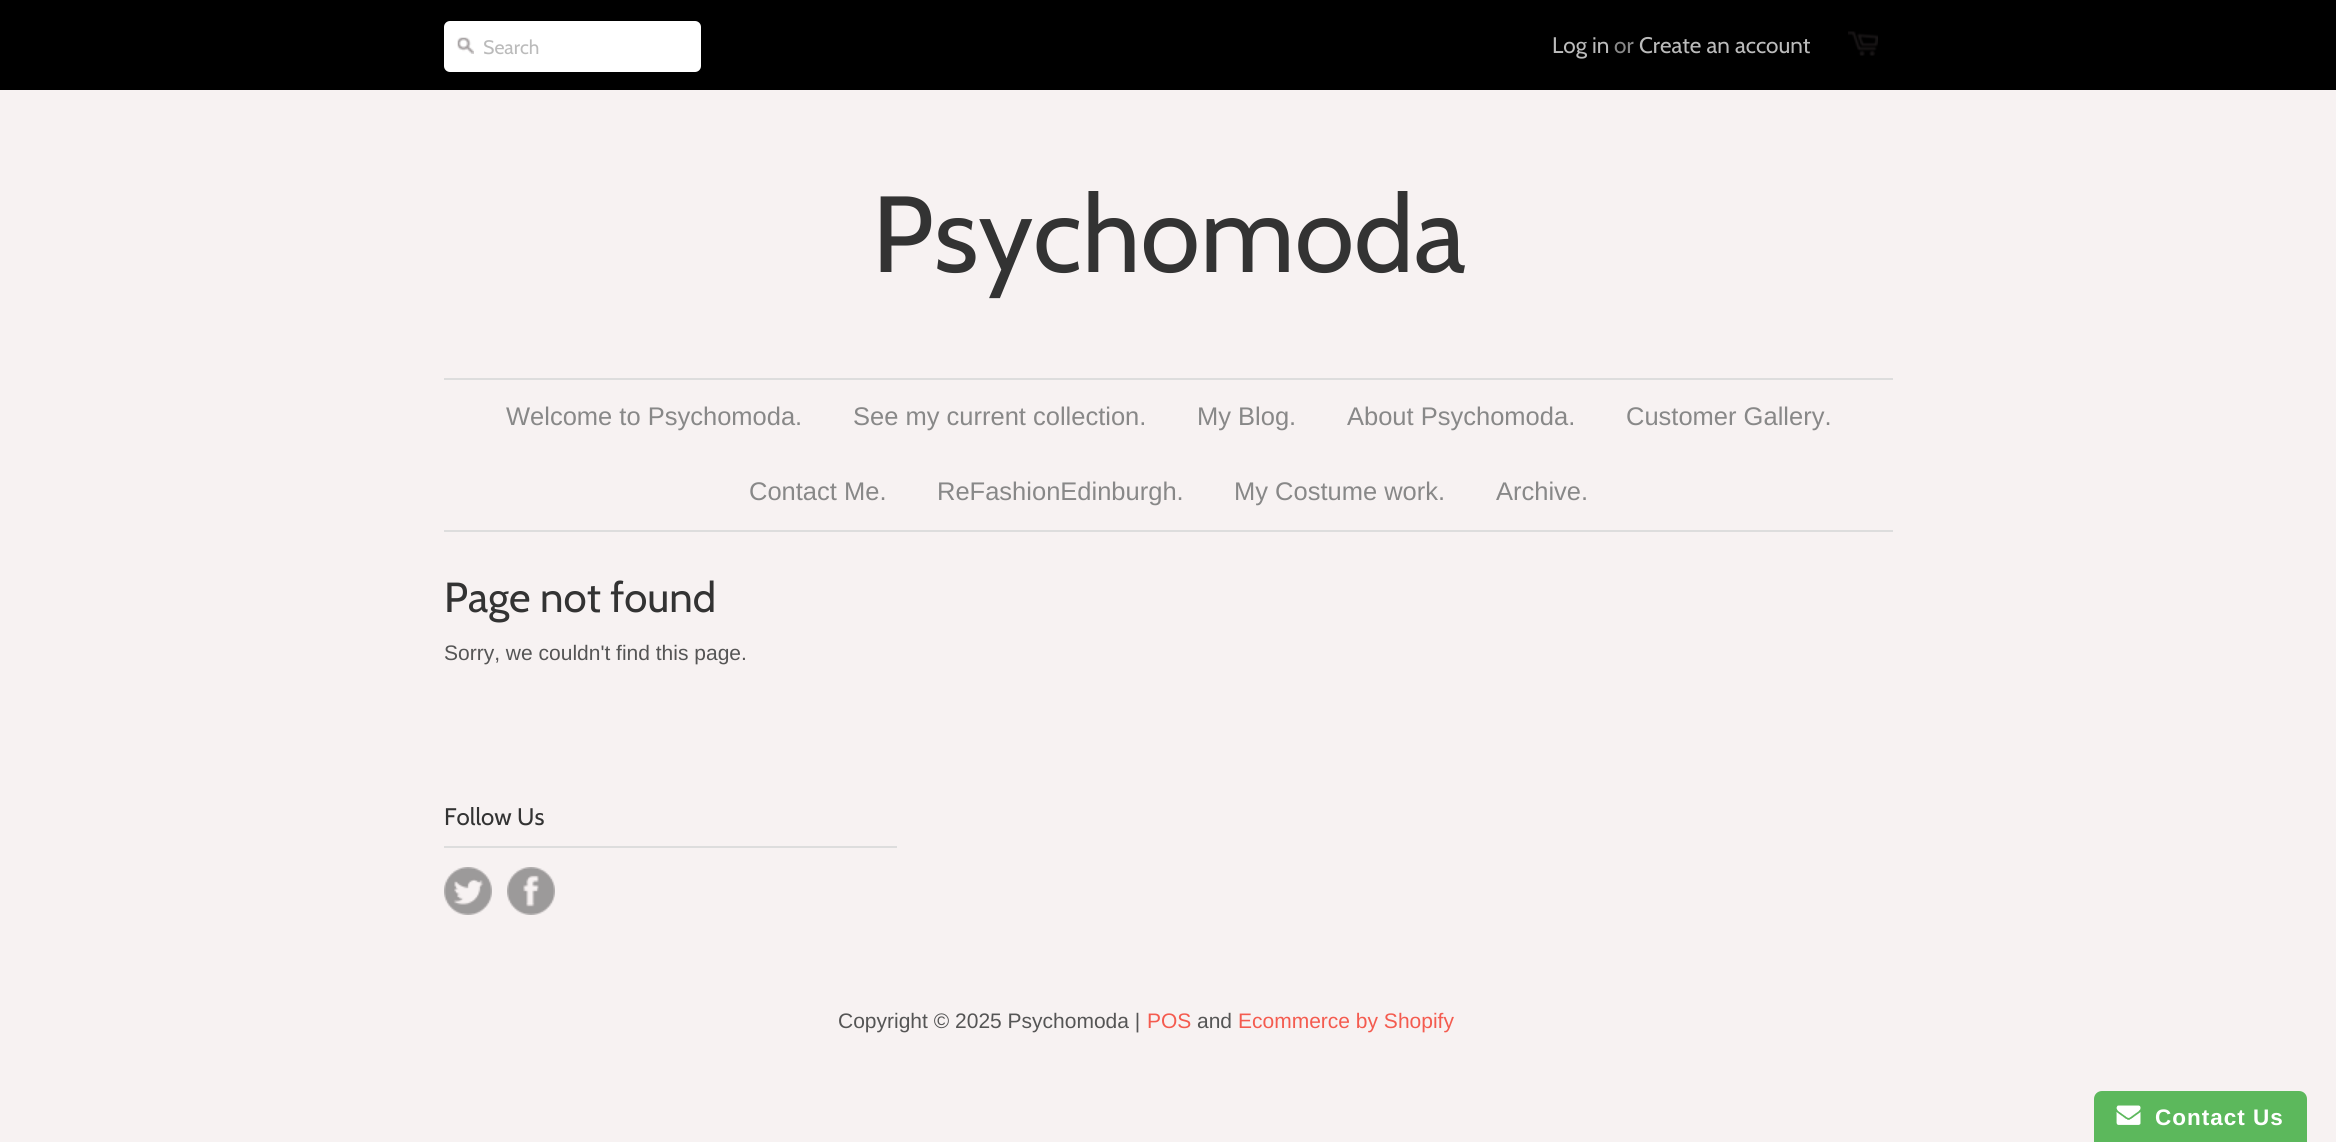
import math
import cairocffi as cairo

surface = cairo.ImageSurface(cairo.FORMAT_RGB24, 2336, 1142)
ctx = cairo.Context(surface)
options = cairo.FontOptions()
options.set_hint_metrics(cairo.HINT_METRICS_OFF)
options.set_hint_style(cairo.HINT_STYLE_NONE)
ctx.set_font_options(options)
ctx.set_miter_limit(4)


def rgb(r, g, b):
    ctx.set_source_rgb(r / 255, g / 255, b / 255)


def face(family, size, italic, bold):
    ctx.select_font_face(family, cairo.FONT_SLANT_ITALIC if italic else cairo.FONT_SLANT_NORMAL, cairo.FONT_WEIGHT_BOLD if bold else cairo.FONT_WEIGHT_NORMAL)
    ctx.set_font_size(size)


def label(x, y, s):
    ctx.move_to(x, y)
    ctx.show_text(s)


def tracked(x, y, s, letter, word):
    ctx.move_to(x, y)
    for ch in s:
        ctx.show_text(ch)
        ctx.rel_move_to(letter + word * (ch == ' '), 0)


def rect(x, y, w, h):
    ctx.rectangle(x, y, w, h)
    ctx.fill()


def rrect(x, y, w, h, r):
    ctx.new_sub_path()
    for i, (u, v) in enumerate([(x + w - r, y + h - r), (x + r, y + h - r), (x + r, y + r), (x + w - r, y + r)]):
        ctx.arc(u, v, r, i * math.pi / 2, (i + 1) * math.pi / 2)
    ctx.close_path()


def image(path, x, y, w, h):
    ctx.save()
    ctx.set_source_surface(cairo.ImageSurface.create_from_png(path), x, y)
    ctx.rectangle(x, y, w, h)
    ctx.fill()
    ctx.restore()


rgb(247, 242, 242)
ctx.paint()
rgb(0, 0, 0)
rect(0, 0, 2336, 90)
rgb(255, 255, 255)
rrect(444, 21, 257, 51, 6)
ctx.fill()
image('image0.png', 457, 37, 17, 17)
face('Cabin', 19.5, 0, 0)
rgb(187, 187, 187)
label(483, 54, 'Search')
face('Cabin', 22.5, 0, 0)
label(1552, 53, 'Log in')
rgb(136, 136, 136)
label(1614, 53, 'or')
rgb(187, 187, 187)
label(1639, 53, 'Create an account')
image('image1.png', 1848, 31, 30, 25)
face('Cabin', 108, 0, 0)
rgb(51, 51, 51)
label(872, 272, 'Psychomoda')
rgb(221, 221, 221)
rect(444, 378, 1449, 2)
rect(444, 530, 1449, 2)
face('Liberation Sans', 25.5, 0, 0)
rgb(136, 136, 136)
label(506, 425, 'Welcome to Psychomoda.')
label(853, 425, 'See my current collection.')
label(1197, 425, 'My Blog.')
label(1347, 425, 'About Psychomoda.')
label(1626, 425, 'Customer Gallery.')
label(749, 500, 'Contact Me.')
label(937, 500, 'ReFashionEdinburgh.')
label(1234, 500, 'My Costume work.')
label(1496, 500, 'Archive.')
face('Cabin', 42, 0, 0)
rgb(51, 51, 51)
label(444, 612, 'Page not found')
face('Liberation Sans', 21, 0, 0)
rgb(85, 85, 85)
label(444, 660, 'Sorry, we couldn\'t find this page.')
rgb(221, 221, 221)
rect(444, 846, 453, 2)
face('Cabin', 24, 0, 0)
rgb(51, 51, 51)
label(444, 825, 'Follow Us')
image('image2.png', 444, 867, 48, 48)
image('image3.png', 507, 867, 48, 48)
face('Liberation Sans', 21, 0, 0)
rgb(85, 85, 85)
label(838, 1028, 'Copyright © 2025 Psychomoda |')
rgb(244, 91, 79)
label(1147, 1028, 'POS')
rgb(85, 85, 85)
label(1197, 1028, 'and')
rgb(244, 91, 79)
label(1238, 1028, 'Ecommerce by Shopify')
rgb(92, 184, 92)
ctx.new_path()
ctx.move_to(2102, 1091)
ctx.line_to(2299, 1091)
ctx.curve_to(2303.5, 1091, 2307, 1094.5, 2307, 1099)
ctx.line_to(2307, 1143)
ctx.line_to(2094, 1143)
ctx.line_to(2094, 1099)
ctx.curve_to(2094, 1094.5, 2097.5, 1091, 2102, 1091)
ctx.close_path()
ctx.fill()
image('image4.png', 2116, 1105, 25, 20)
face('Liberation Sans', 22.5, 0, 1)
rgb(255, 255, 255)
tracked(2155, 1125, 'Contact Us', 1, 0)
surface.write_to_png('render.png')
